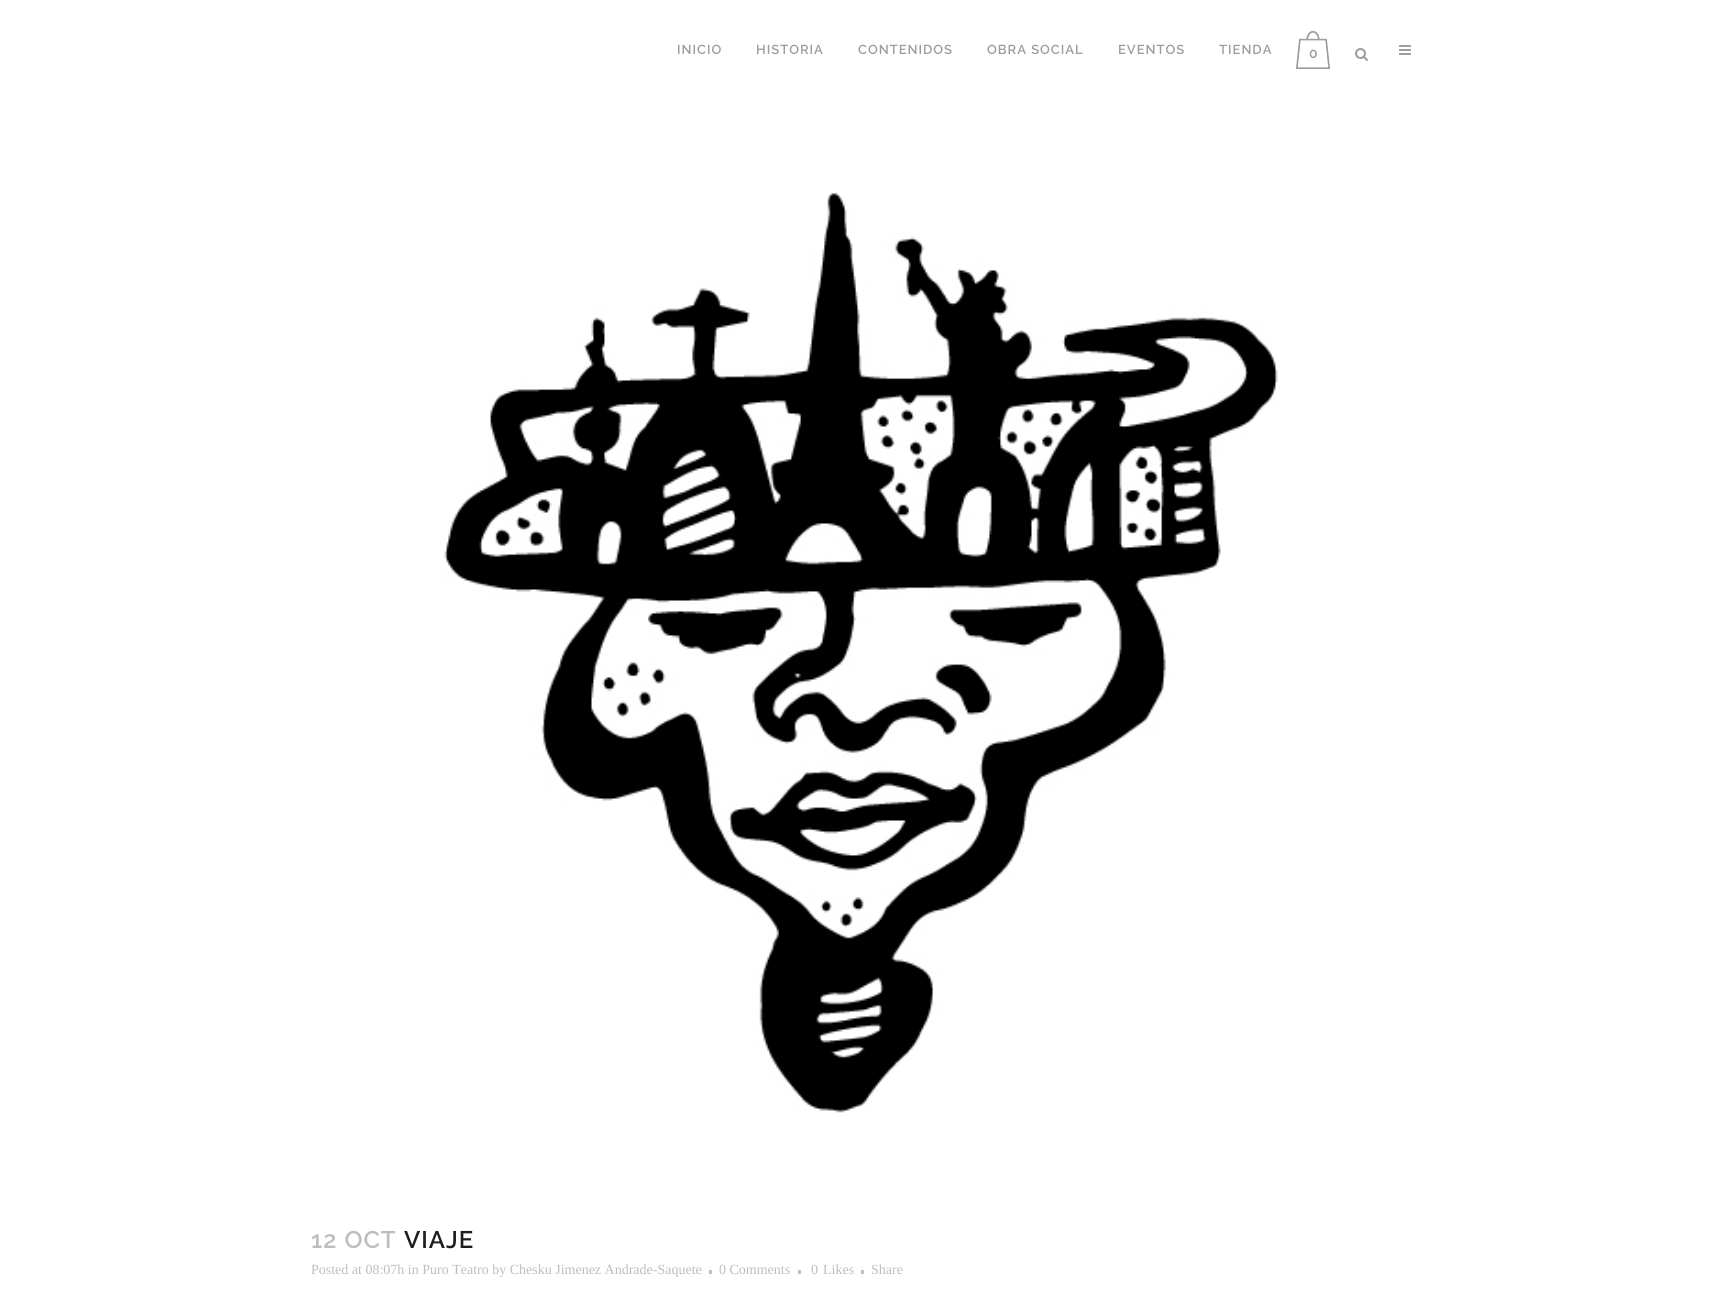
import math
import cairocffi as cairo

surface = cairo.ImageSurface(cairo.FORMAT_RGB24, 1722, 1305)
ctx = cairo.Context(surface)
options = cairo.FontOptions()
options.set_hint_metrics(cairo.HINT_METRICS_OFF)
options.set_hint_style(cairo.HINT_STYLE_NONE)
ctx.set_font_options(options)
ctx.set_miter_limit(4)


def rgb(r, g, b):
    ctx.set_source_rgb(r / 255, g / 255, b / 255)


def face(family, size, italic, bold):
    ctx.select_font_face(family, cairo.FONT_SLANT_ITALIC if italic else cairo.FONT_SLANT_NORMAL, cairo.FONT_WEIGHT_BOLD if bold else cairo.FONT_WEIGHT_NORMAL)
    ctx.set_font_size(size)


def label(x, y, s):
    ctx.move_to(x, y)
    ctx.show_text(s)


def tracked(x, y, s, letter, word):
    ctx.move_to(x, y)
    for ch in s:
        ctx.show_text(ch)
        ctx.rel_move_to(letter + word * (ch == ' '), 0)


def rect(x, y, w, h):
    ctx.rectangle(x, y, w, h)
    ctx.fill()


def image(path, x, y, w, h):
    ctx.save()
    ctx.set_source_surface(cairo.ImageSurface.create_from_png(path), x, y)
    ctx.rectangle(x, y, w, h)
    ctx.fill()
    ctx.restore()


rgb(255, 255, 255)
ctx.paint()
face('Raleway SemiBold', 13, 0, 0)
rgb(157, 157, 157)
tracked(677, 54, 'INICIO', 1, 0)
tracked(756, 54, 'HISTORIA', 1, 0)
tracked(858, 54, 'CONTENIDOS', 1, 0)
tracked(987, 54, 'OBRA SOCIAL', 1, 0)
tracked(1118, 54, 'EVENTOS', 1, 0)
tracked(1219, 54, 'TIENDA', 1, 0)
image('image0.png', 1296, 31, 34, 38)
face('Raleway SemiBold', 14, 0, 0)
label(1309, 58, '0')
image('image1.png', 1355, 48, 13, 13)
image('image2.png', 1399, 45, 12, 10)
image('image3.png', 444, 193, 834, 920)
face('Raleway SemiBold', 24, 0, 0)
rgb(190, 190, 190)
tracked(311, 1248, '12 OCT', 1, 0)
rgb(30, 30, 30)
tracked(404, 1248, 'VIAJE', 1, 0)
face('Liberation Serif', 14, 0, 0)
rgb(190, 190, 190)
label(311, 1274, 'Posted at 08:07h in Puro Teatro by Chesku Jimenez Andrade-Saquete')
rect(709, 1270, 3, 4)
label(719, 1274, '0 Comments')
rect(798, 1270, 3, 4)
label(811, 1274, '0')
label(823, 1274, 'Likes')
rect(861, 1270, 3, 4)
label(871, 1274, 'Share')
surface.write_to_png('render.png')
